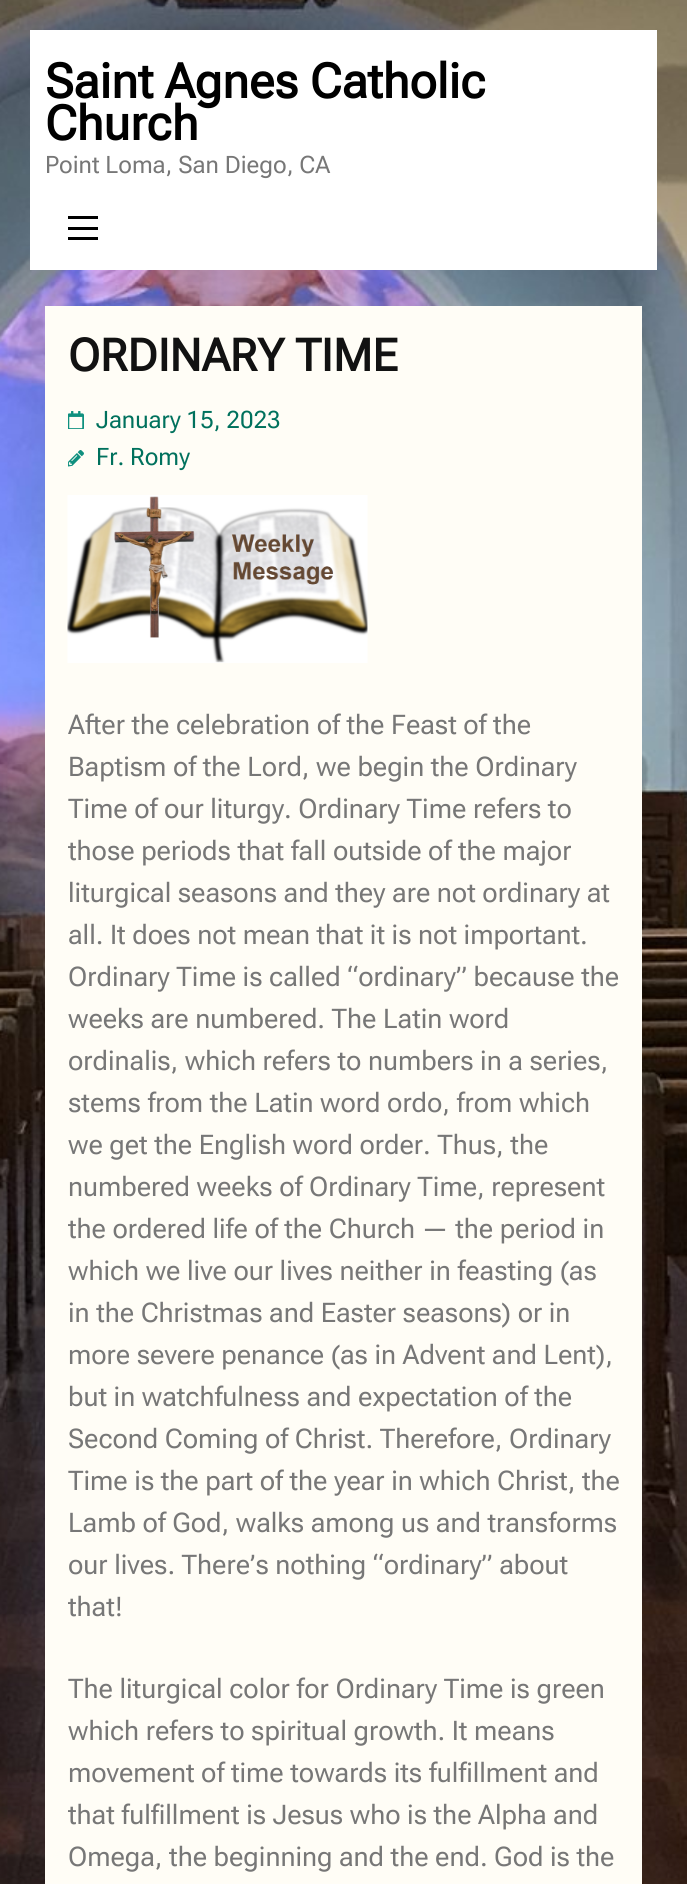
import math
import cairocffi as cairo

surface = cairo.ImageSurface(cairo.FORMAT_RGB24, 687, 1884)
ctx = cairo.Context(surface)
options = cairo.FontOptions()
options.set_hint_metrics(cairo.HINT_METRICS_OFF)
options.set_hint_style(cairo.HINT_STYLE_NONE)
ctx.set_font_options(options)
ctx.set_miter_limit(4)


def rgb(r, g, b):
    ctx.set_source_rgb(r / 255, g / 255, b / 255)


def face(family, size, italic, bold):
    ctx.select_font_face(family, cairo.FONT_SLANT_ITALIC if italic else cairo.FONT_SLANT_NORMAL, cairo.FONT_WEIGHT_BOLD if bold else cairo.FONT_WEIGHT_NORMAL)
    ctx.set_font_size(size)


def label(x, y, s):
    ctx.move_to(x, y)
    ctx.show_text(s)


def rect(x, y, w, h):
    ctx.rectangle(x, y, w, h)
    ctx.fill()


def image(path, x, y, w, h):
    ctx.save()
    ctx.set_source_surface(cairo.ImageSurface.create_from_png(path), x, y)
    ctx.rectangle(x, y, w, h)
    ctx.fill()
    ctx.restore()


rgb(255, 255, 255)
ctx.paint()
image('image0.png', 0, 0, 687, 1884)
rgb(255, 255, 255)
rect(30, 30, 627, 240)
face('Roboto Flex', 48, 0, 1)
rgb(0, 0, 0)
label(45, 98, 'Saint Agnes Catholic')
label(45, 140, 'Church')
face('Roboto Flex', 24, 0, 0)
rgb(119, 119, 119)
label(45, 173, 'Point Loma, San Diego, CA')
rgb(0, 0, 0)
rect(68, 216, 30, 3)
rect(68, 227, 30, 3)
rect(68, 237, 30, 3)
rgb(255, 253, 246)
rect(45, 306, 597, 1578)
face('Roboto Flex', 45, 0, 1)
rgb(18, 18, 18)
label(68, 371, 'ORDINARY TIME')
image('image1.png', 68, 411, 16, 18)
face('Roboto Flex', 24, 0, 0)
rgb(0, 113, 93)
label(96, 428, 'January 15, 2023')
image('image2.png', 68, 450, 16, 17)
label(96, 465, 'Fr. Romy')
image('image3.png', 67, 495, 301, 168)
face('Roboto Flex', 27, 0, 0)
rgb(119, 119, 119)
label(68, 734, 'After the celebration of the Feast of the')
label(68, 776, 'Baptism of the Lord, we begin the Ordinary')
label(68, 818, 'Time of our liturgy. Ordinary Time refers to')
label(68, 860, 'those periods that fall outside of the major')
label(68, 902, 'liturgical seasons and they are not ordinary at')
label(68, 944, 'all. It does not mean that it is not important.')
label(68, 986, 'Ordinary Time is called “ordinary” because the')
label(68, 1028, 'weeks are numbered. The Latin word')
label(68, 1070, 'ordinalis, which refers to numbers in a series,')
label(68, 1112, 'stems from the Latin word ordo, from which')
label(68, 1154, 'we get the English word order. Thus, the')
label(68, 1196, 'numbered weeks of Ordinary Time, represent')
label(68, 1238, 'the ordered life of the Church — the period in')
label(68, 1280, 'which we live our lives neither in feasting (as')
label(68, 1322, 'in the Christmas and Easter seasons) or in')
label(68, 1364, 'more severe penance (as in Advent and Lent),')
label(68, 1406, 'but in watchfulness and expectation of the')
label(68, 1448, 'Second Coming of Christ. Therefore, Ordinary')
label(68, 1490, 'Time is the part of the year in which Christ, the')
label(68, 1532, 'Lamb of God, walks among us and transforms')
label(68, 1574, 'our lives. There’s nothing “ordinary” about')
label(68, 1616, 'that!')
label(68, 1698, 'The liturgical color for Ordinary Time is green')
label(68, 1740, 'which refers to spiritual growth. It means')
label(68, 1782, 'movement of time towards its fulfillment and')
label(68, 1824, 'that fulfillment is Jesus who is the Alpha and')
label(68, 1866, 'Omega, the beginning and the end. God is the')
surface.write_to_png('render.png')
